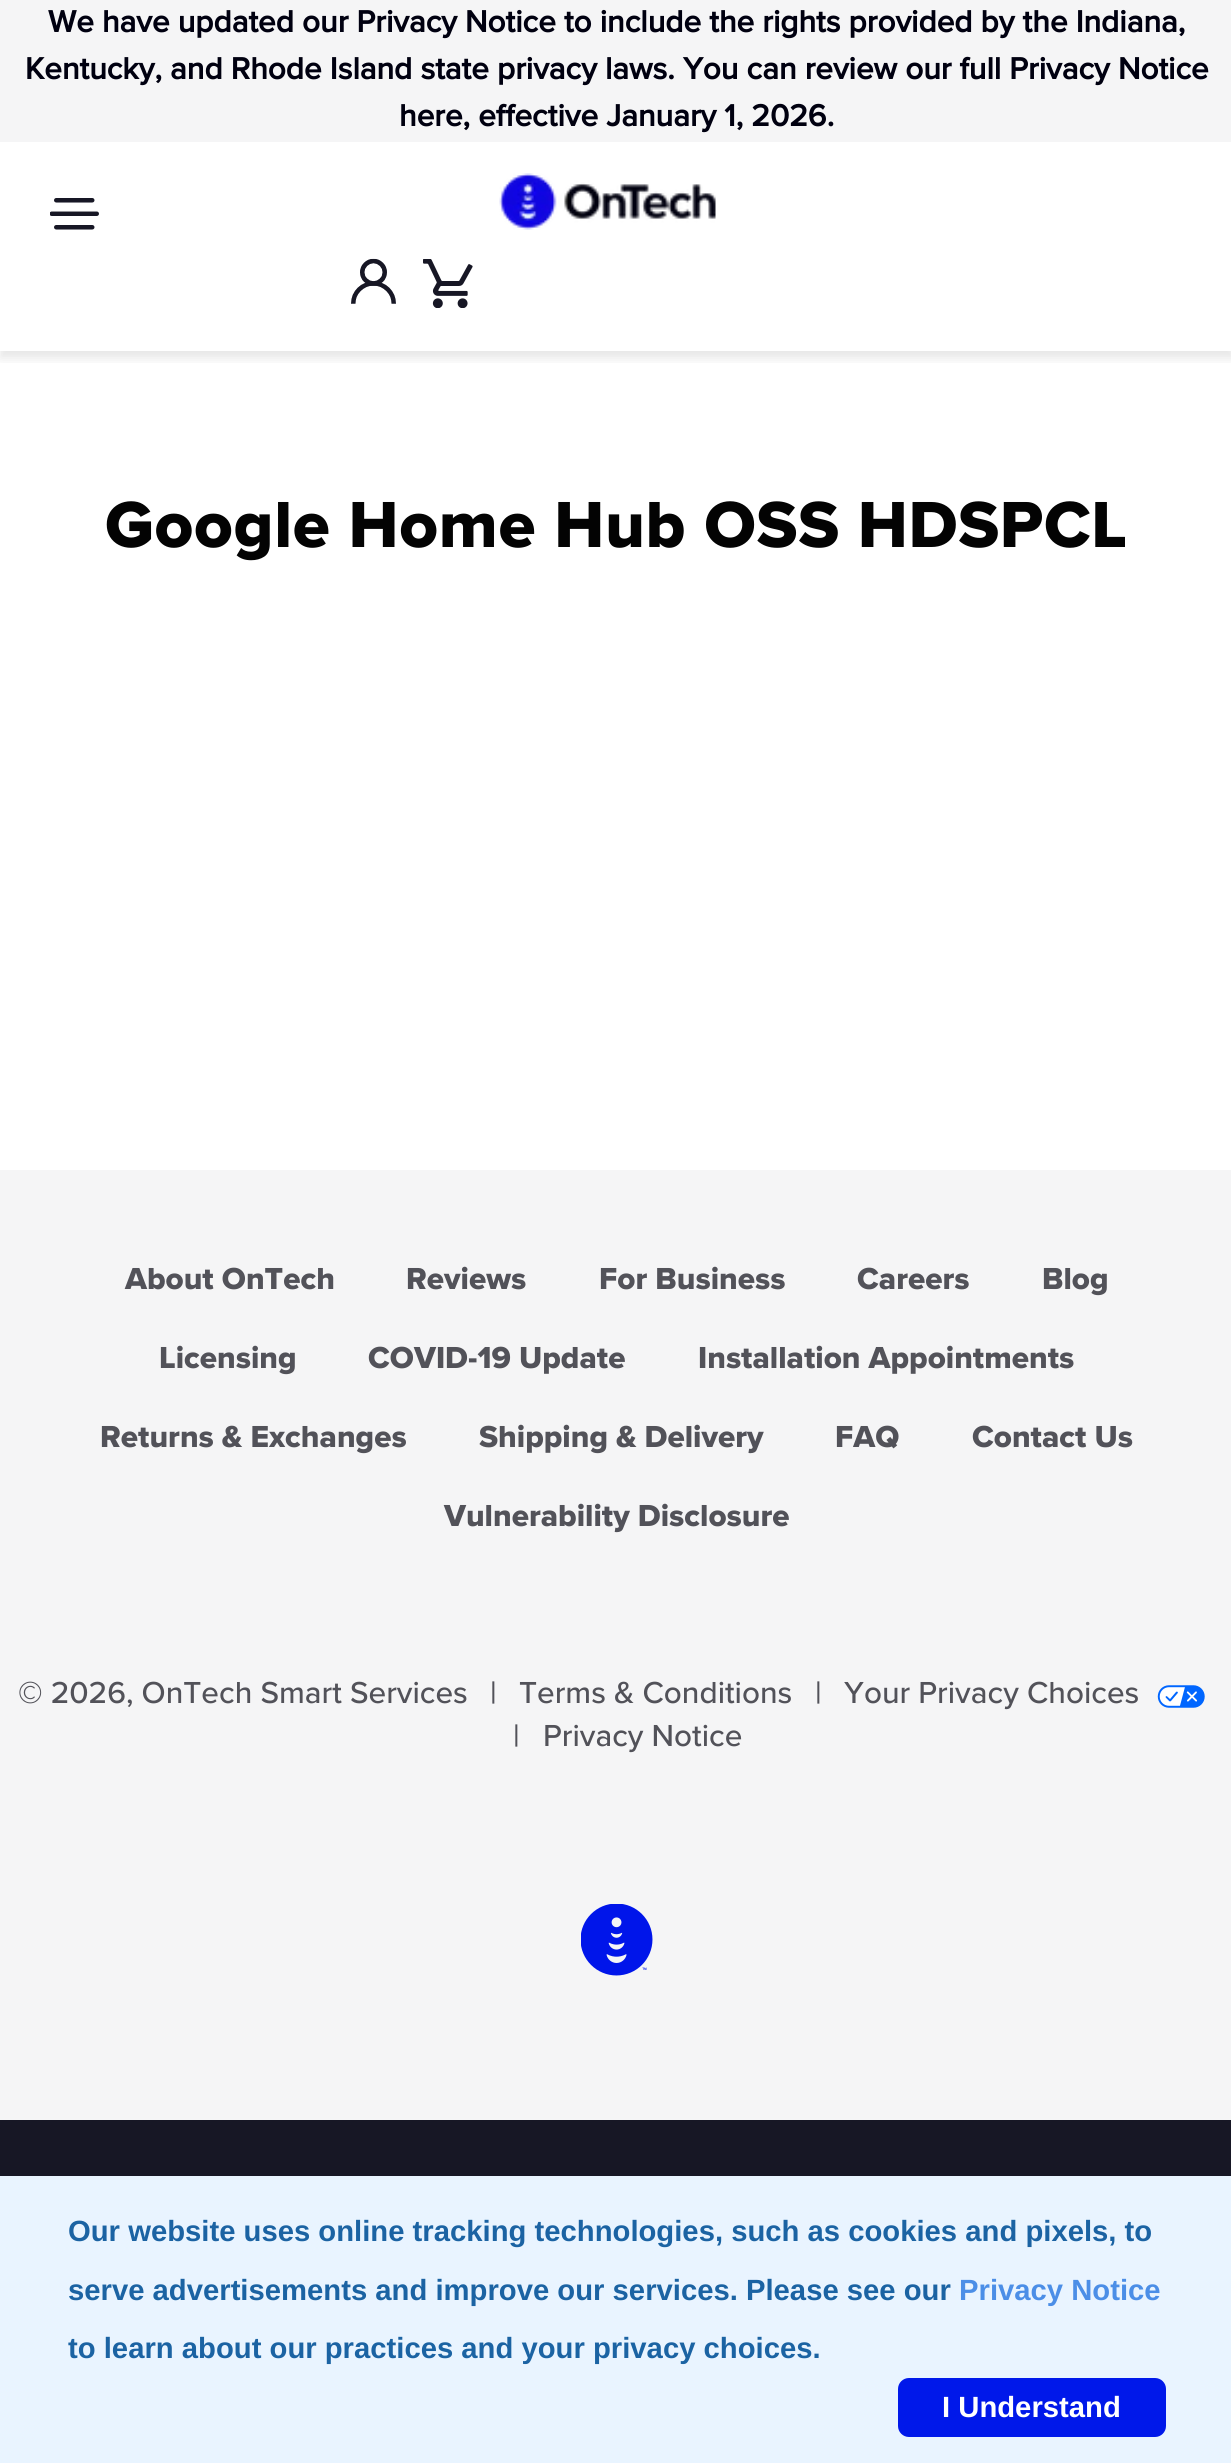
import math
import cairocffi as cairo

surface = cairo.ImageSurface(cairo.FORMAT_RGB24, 1231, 2463)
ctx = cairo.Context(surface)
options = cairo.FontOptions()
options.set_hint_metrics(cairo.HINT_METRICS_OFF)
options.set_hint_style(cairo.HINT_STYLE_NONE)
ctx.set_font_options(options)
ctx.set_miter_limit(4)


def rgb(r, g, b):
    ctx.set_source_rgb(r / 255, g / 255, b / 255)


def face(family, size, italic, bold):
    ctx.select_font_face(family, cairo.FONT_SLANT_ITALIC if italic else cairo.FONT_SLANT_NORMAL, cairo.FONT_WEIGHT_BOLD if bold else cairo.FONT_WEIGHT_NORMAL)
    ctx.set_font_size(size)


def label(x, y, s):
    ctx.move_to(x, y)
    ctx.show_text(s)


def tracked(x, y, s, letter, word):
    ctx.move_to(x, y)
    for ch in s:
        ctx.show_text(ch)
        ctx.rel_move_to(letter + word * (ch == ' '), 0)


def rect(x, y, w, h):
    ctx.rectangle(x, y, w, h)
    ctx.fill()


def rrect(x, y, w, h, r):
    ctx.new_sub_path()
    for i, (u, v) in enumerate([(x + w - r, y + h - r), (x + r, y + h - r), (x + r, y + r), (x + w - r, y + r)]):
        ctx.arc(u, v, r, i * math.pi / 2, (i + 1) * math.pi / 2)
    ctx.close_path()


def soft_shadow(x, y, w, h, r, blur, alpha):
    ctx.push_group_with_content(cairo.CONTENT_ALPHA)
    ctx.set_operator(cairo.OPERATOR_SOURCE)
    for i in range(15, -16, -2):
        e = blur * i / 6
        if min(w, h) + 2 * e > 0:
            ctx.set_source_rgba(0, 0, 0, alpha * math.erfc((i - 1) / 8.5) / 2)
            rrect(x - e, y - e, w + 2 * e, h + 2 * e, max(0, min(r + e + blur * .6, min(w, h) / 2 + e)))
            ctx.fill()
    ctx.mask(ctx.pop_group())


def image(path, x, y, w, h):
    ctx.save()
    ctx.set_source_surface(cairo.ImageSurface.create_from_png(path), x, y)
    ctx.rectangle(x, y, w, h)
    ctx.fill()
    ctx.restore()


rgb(23, 23, 37)
ctx.paint()
rgb(255, 255, 255)
rect(0, 142, 1231, 1028)
rgb(245, 245, 246)
rect(0, 0, 1231, 142)
face('Proxima Nova', 31.5, 0, 1)
rgb(0, 0, 16)
label(48, 32, 'We have updated our Privacy Notice to include the rights provided by the Indiana,')
label(25, 79, 'Kentucky, and Rhode Island state privacy laws. You can review our full Privacy Notice')
ctx.save()
ctx.rectangle(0, 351, 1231, 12)
ctx.clip()
rgb(0, 0, 0)
soft_shadow(0, 149, 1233, 209, 0, 5.5, 0.1)
ctx.restore()
label(399, 126, 'here, effective January 1, 2026.')
image('image0.png', 50, 198, 49, 32)
image('image1.png', 499, 173, 217, 57)
image('image2.png', 351, 258, 45, 46)
image('image3.png', 423, 259, 50, 49)
face('Proxima Nova ExtraBold', 67.5, 0, 0)
rgb(3, 3, 3)
tracked(105, 547, 'Google Home Hub OSS HDSPCL', 0.7, 0)
rgb(245, 245, 246)
rect(0, 1170, 1231, 950)
face('Proxima Nova ExtraBold', 31.5, 0, 0)
rgb(82, 82, 89)
label(125, 1289, 'About OnTech')
label(406, 1289, 'Reviews')
label(599, 1289, 'For Business')
label(857, 1289, 'Careers')
label(1042, 1289, 'Blog')
label(159, 1368, 'Licensing')
label(368, 1368, 'COVID-19 Update')
label(698, 1368, 'Installation Appointments')
label(100, 1447, 'Returns & Exchanges')
label(479, 1447, 'Shipping & Delivery')
label(835, 1447, 'FAQ')
label(972, 1447, 'Contact Us')
label(444, 1526, 'Vulnerability Disclosure')
face('Proxima Nova Medium', 31.5, 0, 0)
label(18, 1703, '© 2026, OnTech Smart Services')
label(490, 1703, '|')
label(519, 1703, 'Terms & Conditions')
label(815, 1703, '|')
label(844, 1703, 'Your Privacy Choices')
image('image4.png', 1157, 1685, 48, 23)
label(513, 1746, '|')
label(543, 1746, 'Privacy Notice')
image('image5.png', 581, 1904, 72, 72)
rgb(233, 244, 255)
rect(0, 2176, 1231, 287)
face('Liberation Sans', 29.25, 0, 1)
rgb(27, 99, 163)
label(68, 2241, 'Our website uses online tracking technologies, such as cookies and pixels, to')
label(68, 2300, 'serve advertisements and improve our services. Please see our')
rgb(75, 142, 231)
label(959, 2300, 'Privacy Notice')
rgb(27, 99, 163)
label(68, 2358, 'to learn about our practices and your privacy choices.')
rgb(0, 24, 234)
rrect(898, 2378, 268, 59, 11)
ctx.fill()
rgb(255, 255, 255)
label(942, 2417, 'I Understand')
surface.write_to_png('render.png')
